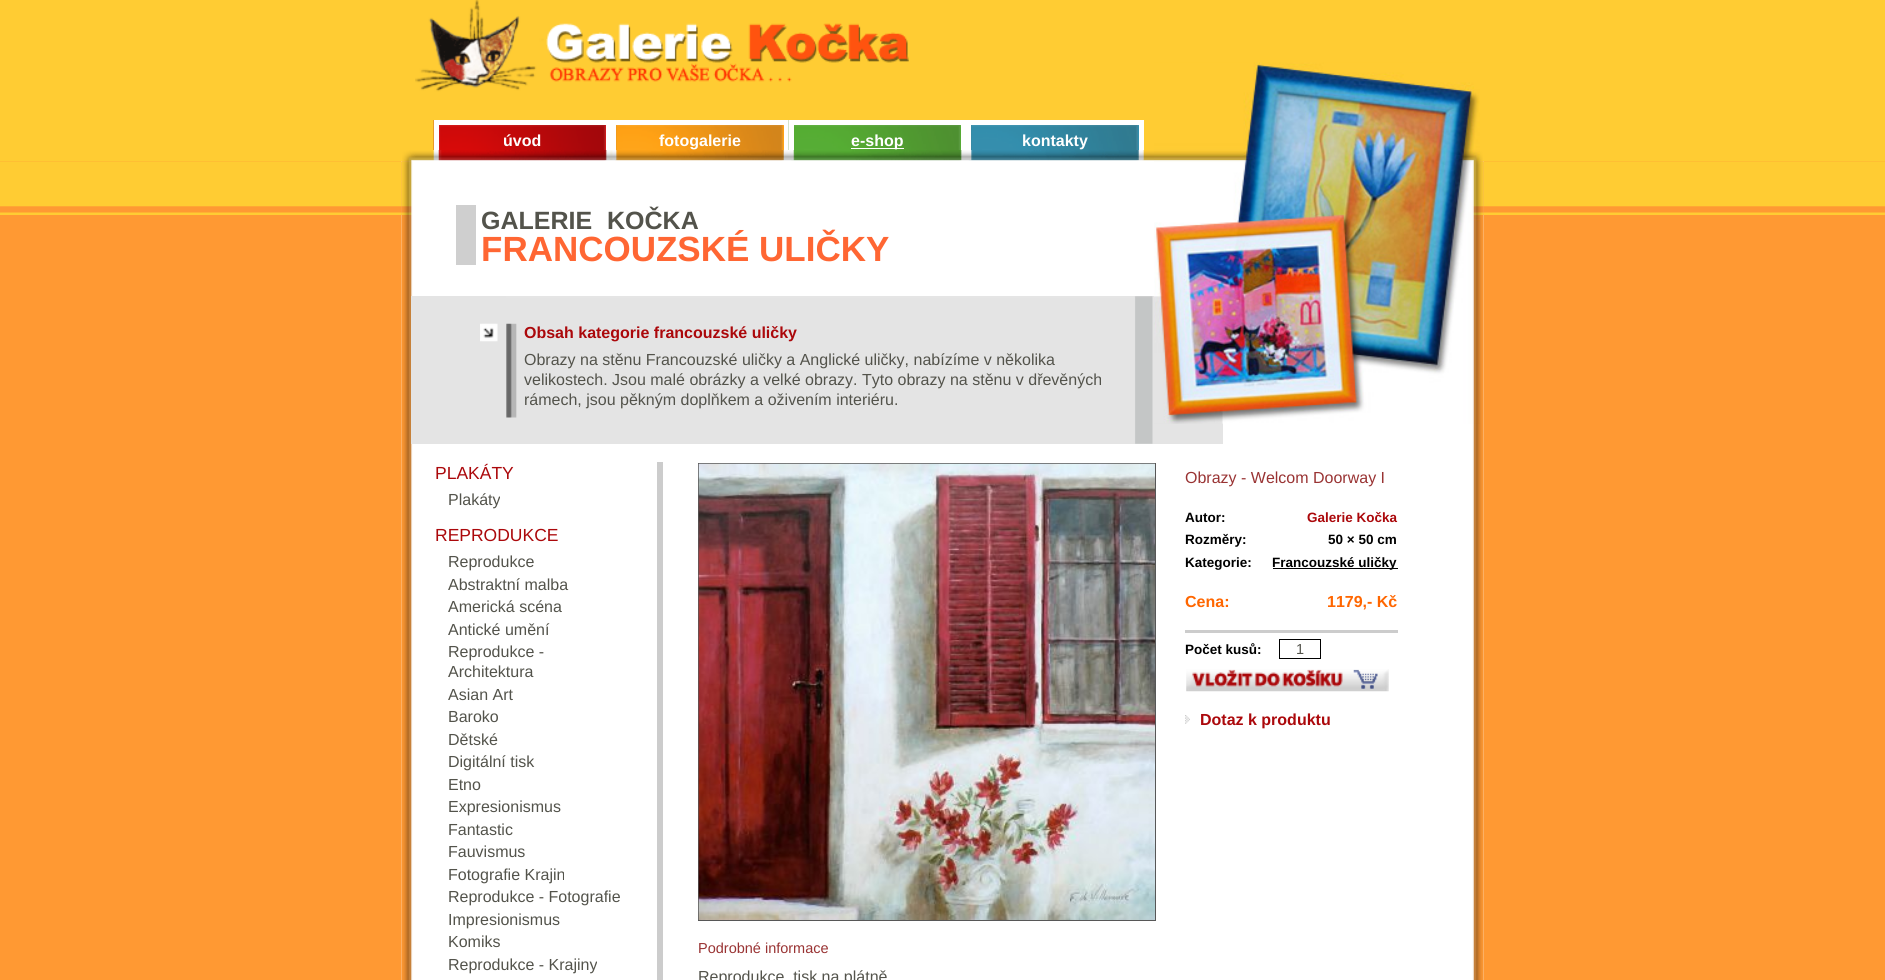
import math
import cairocffi as cairo

surface = cairo.ImageSurface(cairo.FORMAT_RGB24, 1885, 980)
ctx = cairo.Context(surface)
options = cairo.FontOptions()
options.set_hint_metrics(cairo.HINT_METRICS_OFF)
options.set_hint_style(cairo.HINT_STYLE_NONE)
ctx.set_font_options(options)
ctx.set_miter_limit(4)


def rgb(r, g, b):
    ctx.set_source_rgb(r / 255, g / 255, b / 255)


def face(family, size, italic, bold):
    ctx.select_font_face(family, cairo.FONT_SLANT_ITALIC if italic else cairo.FONT_SLANT_NORMAL, cairo.FONT_WEIGHT_BOLD if bold else cairo.FONT_WEIGHT_NORMAL)
    ctx.set_font_size(size)


def label(x, y, s):
    ctx.move_to(x, y)
    ctx.show_text(s)


def tracked(x, y, s, letter, word):
    ctx.move_to(x, y)
    for ch in s:
        ctx.show_text(ch)
        ctx.rel_move_to(letter + word * (ch == ' '), 0)


def rect(x, y, w, h):
    ctx.rectangle(x, y, w, h)
    ctx.fill()


def image(path, x, y, w, h):
    ctx.save()
    ctx.set_source_surface(cairo.ImageSurface.create_from_png(path), x, y)
    ctx.rectangle(x, y, w, h)
    ctx.fill()
    ctx.restore()


rgb(255, 204, 51)
ctx.paint()
image('image0.png', 402, 150, 1081, 11)
image('image1.png', 415, 0, 494, 92)
image('image2.png', 433, 120, 173, 30)
rgb(255, 255, 255)
rect(434, 120, 355, 5)
rect(606, 120, 10, 30)
rect(434, 120, 5, 30)
face('Liberation Sans', 16, 0, 1)
label(503, 146, 'úvod')
image('image3.png', 616, 125, 168, 25)
rect(784, 120, 5, 30)
label(659, 146, 'fotogalerie')
image('image4.png', 788, 120, 173, 30)
rect(789, 120, 355, 5)
rect(961, 120, 10, 30)
rect(789, 120, 5, 30)
rect(851, 148, 53, 1)
label(851, 146, 'e-shop')
image('image5.png', 971, 125, 168, 25)
rect(1139, 120, 5, 30)
label(1022, 146, 'kontakty')
rgb(255, 153, 51)
rect(0, 161, 1885, 819)
image('image6.png', 0, 161, 1885, 54)
rgb(255, 255, 255)
rect(401, 161, 1083, 819)
image('image7.png', 401, 161, 1083, 819)
image('image8.png', 401, 161, 11, 54)
rgb(228, 228, 228)
rect(411, 296, 812, 148)
image('image12.png', 1154, 62, 326, 362)
image('image9.png', 1472, 161, 12, 54)
rgb(207, 207, 207)
rect(456, 205, 20, 60)
face('Liberation Sans', 25, 0, 1)
rgb(83, 83, 75)
tracked(481, 229, 'GALERIE KOČKA', 0, 8)
face('Liberation Sans', 35, 0, 1)
rgb(255, 102, 51)
label(481, 261, 'FRANCOUZSKÉ ULIČKY')
image('image10.png', 506, 296, 647, 148)
image('image11.png', 480, 323, 18, 19)
face('Liberation Sans', 16, 0, 1)
rgb(171, 8, 11)
label(524, 338, 'Obsah kategorie francouzské uličky')
face('Liberation Sans', 16, 0, 0)
rgb(83, 83, 75)
label(524, 365, 'Obrazy na stěnu Francouzské uličky a Anglické uličky, nabízíme v několika')
label(524, 385, 'velikostech. Jsou malé obrázky a velké obrazy. Tyto obrazy na stěnu v dřevěných')
label(524, 405, 'rámech, jsou pěkným doplňkem a oživením interiéru.')
rgb(204, 204, 204)
rect(657, 462, 6, 518)
face('Liberation Sans', 17.5, 0, 0)
rgb(171, 8, 11)
label(435, 479, 'PLAKÁTY')
face('Liberation Sans', 16, 0, 0)
rgb(83, 83, 75)
label(448, 505, 'Plakáty')
face('Liberation Sans', 17.5, 0, 0)
rgb(171, 8, 11)
label(435, 541, 'REPRODUKCE')
face('Liberation Sans', 16, 0, 0)
rgb(83, 83, 75)
label(448, 567, 'Reprodukce')
label(448, 590, 'Abstraktní malba')
label(448, 612, 'Americká scéna')
label(448, 635, 'Antické umění')
label(448, 657, 'Reprodukce -')
label(448, 677, 'Architektura')
label(448, 700, 'Asian Art')
label(448, 722, 'Baroko')
label(448, 745, 'Dětské')
label(448, 767, 'Digitální tisk')
label(448, 790, 'Etno')
label(448, 812, 'Expresionismus')
label(448, 835, 'Fantastic')
label(448, 857, 'Fauvismus')
label(448, 880, 'Fotografie Krajin')
label(448, 902, 'Reprodukce - Fotografie')
label(448, 925, 'Impresionismus')
label(448, 947, 'Komiks')
label(448, 970, 'Reprodukce - Krajiny')
ctx.rectangle(698.5, 463.5, 457, 457)
rgb(87, 87, 87)
ctx.set_line_width(1)
ctx.stroke()
image('image13.png', 698, 463, 457, 457)
rgb(153, 51, 51)
label(1185, 483, 'Obrazy - Welcom Doorway I')
face('Liberation Sans', 13.5, 0, 1)
rgb(0, 0, 0)
label(1185, 522, 'Autor:')
rgb(171, 8, 11)
label(1307, 522, 'Galerie Kočka')
rgb(0, 0, 0)
label(1185, 544, 'Rozměry:')
label(1328, 544, '50 × 50 cm')
label(1185, 567, 'Kategorie:')
rect(1273, 568, 125, 1)
label(1272, 567, 'Francouzské uličky')
face('Liberation Sans', 16, 0, 1)
rgb(255, 102, 0)
label(1185, 607, 'Cena:')
label(1327, 607, '1179,- Kč')
rgb(204, 204, 204)
rect(1185, 630, 213, 3)
face('Liberation Sans', 13.5, 0, 1)
rgb(0, 0, 0)
label(1185, 654, 'Počet kusů:')
ctx.rectangle(1279.5, 639.5, 41, 19)
ctx.stroke()
face('Liberation Sans', 14.5, 0, 0)
rgb(83, 83, 75)
label(1296, 654, '1')
image('image14.png', 1186, 669, 203, 23)
image('image15.png', 1185, 715, 5, 9)
face('Liberation Sans', 16, 0, 1)
rgb(171, 8, 11)
label(1200, 725, 'Dotaz k produktu')
face('Liberation Sans', 14.5, 0, 0)
rgb(153, 51, 51)
label(698, 953, 'Podrobné informace')
face('Liberation Sans', 16, 0, 0)
rgb(83, 83, 75)
label(698, 982, 'Reprodukce, tisk na plátně')
surface.write_to_png('render.png')
